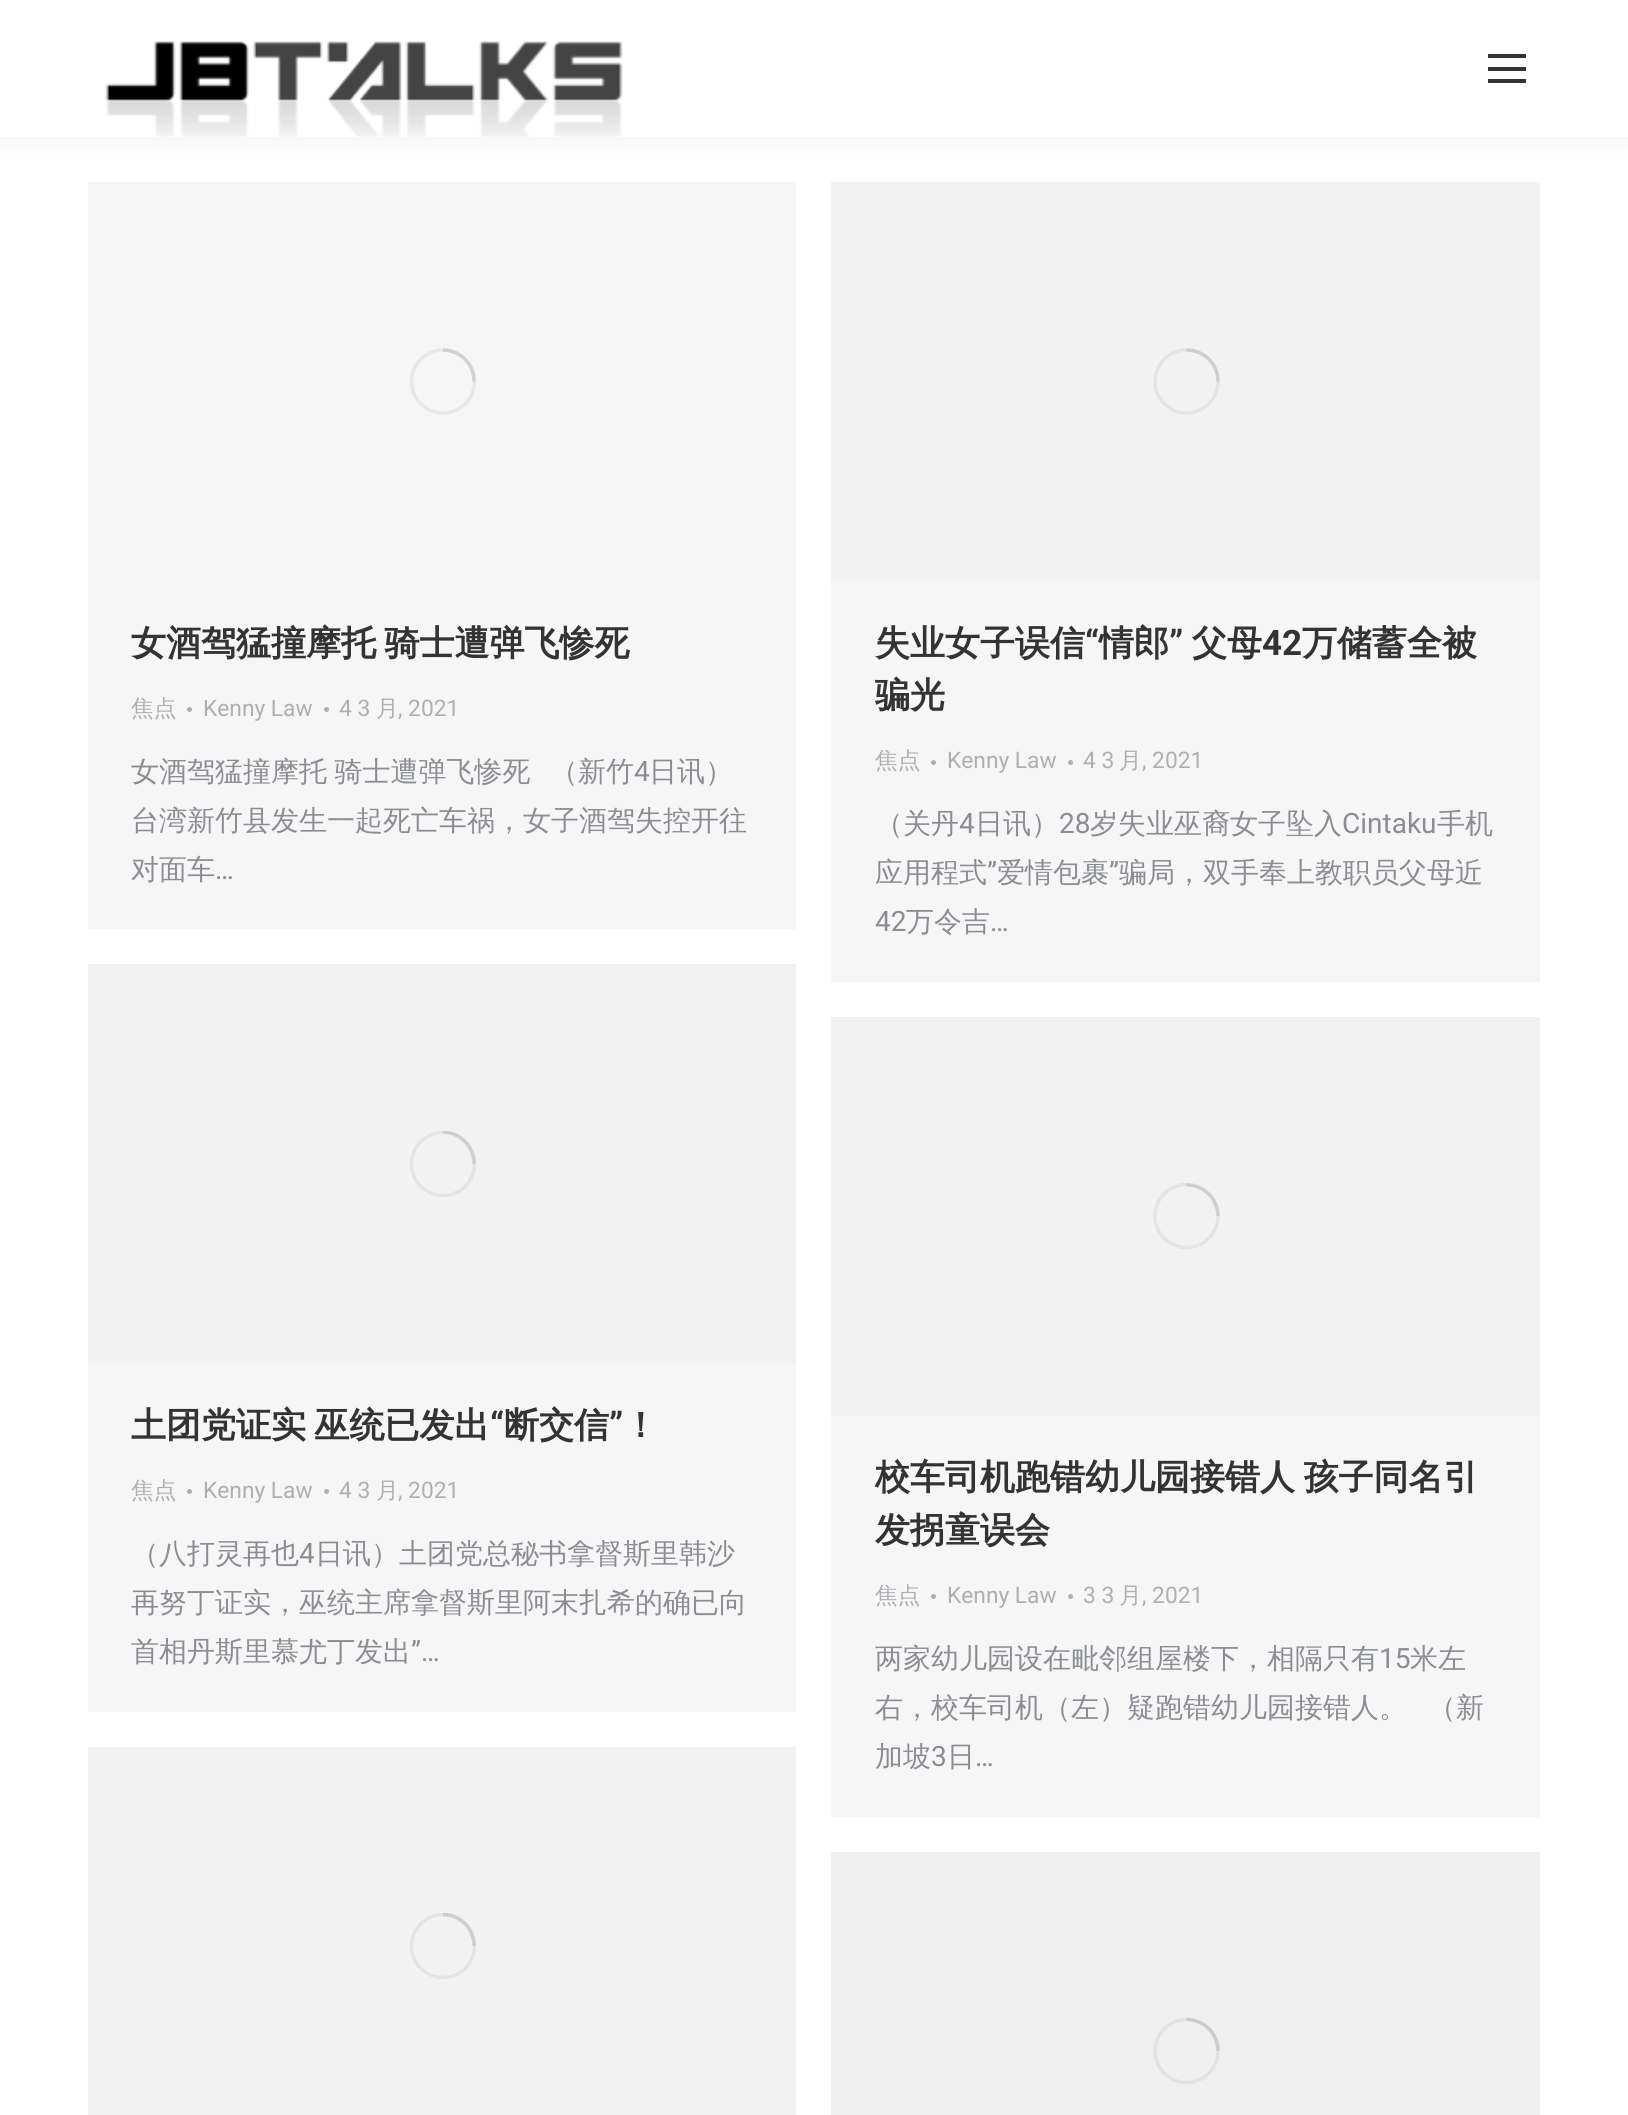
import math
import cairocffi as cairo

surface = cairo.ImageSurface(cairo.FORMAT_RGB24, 1628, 2115)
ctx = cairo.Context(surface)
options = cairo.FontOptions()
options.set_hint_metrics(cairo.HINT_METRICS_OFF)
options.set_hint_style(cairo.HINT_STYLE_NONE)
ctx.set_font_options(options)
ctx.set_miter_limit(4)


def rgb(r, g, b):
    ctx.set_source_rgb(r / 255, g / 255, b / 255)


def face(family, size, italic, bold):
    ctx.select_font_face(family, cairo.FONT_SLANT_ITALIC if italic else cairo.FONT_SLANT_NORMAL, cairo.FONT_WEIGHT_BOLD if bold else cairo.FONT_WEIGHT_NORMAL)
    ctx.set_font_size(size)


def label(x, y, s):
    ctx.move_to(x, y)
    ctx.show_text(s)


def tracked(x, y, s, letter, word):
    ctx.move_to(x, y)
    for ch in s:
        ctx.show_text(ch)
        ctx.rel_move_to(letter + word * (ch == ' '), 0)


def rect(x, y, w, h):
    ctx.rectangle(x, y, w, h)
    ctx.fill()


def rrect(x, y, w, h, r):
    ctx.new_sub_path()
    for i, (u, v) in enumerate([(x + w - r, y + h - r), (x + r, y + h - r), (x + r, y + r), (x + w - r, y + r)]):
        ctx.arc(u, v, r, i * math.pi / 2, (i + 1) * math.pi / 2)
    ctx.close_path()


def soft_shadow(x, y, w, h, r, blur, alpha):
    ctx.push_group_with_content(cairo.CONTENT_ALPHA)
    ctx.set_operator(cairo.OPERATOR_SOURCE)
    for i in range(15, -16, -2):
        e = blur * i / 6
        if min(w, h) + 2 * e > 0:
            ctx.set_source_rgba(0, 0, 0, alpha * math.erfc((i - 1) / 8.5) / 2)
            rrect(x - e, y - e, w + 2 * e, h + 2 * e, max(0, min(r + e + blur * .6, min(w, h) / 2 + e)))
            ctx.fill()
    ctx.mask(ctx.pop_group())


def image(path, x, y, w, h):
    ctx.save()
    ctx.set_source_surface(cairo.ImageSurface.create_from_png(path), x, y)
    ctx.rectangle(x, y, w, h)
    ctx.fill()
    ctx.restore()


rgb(255, 255, 255)
ctx.paint()
rgb(0, 0, 0)
soft_shadow(-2, -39, 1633, 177, 0, 13, 0.07)
rgb(255, 255, 255)
rect(0, 0, 1628, 137)
image('image0.png', 105, 41, 518, 96)
rgb(51, 51, 51)
rect(1488, 54, 38, 4)
rect(1488, 67, 38, 4)
rect(1488, 79, 38, 4)
rgb(246, 246, 246)
rect(88, 182, 708, 747)
ctx.save()
ctx.rectangle(410, 348, 66, 67)
ctx.clip()
ctx.arc(443, 381.5, 31.5, 0, 2 * math.pi)
rgb(231, 232, 233)
ctx.set_line_width(3.5)
ctx.stroke()
ctx.restore()
ctx.new_path()
ctx.move_to(474, 381.5)
ctx.curve_to(474, 364, 460, 350, 443, 350)
ctx.set_source_rgba(0.545, 0.553, 0.58, 0.25)
ctx.set_line_width(3.5)
ctx.stroke()
face('WenQuanYi Zen Hei', 35, 0, 1)
rgb(51, 51, 51)
tracked(131, 655, '女酒驾猛撞摩托 骑士遭弹飞惨死', 0, -2)
face('WenQuanYi Zen Hei Medium', 22.75, 0, 0)
rgb(173, 175, 179)
label(131, 716, '焦点')
ctx.new_path()
ctx.arc(189.5, 709.5, 2.5, 0, 2 * math.pi)
ctx.fill()
face('Roboto', 22.75, 0, 0)
label(203, 716, 'Kenny Law')
ctx.new_path()
ctx.arc(326.5, 709.5, 2.5, 0, 2 * math.pi)
ctx.fill()
label(339, 716, '4 3')
face('WenQuanYi Zen Hei Medium', 22.75, 0, 0)
label(376, 716, '月')
face('Roboto', 22.75, 0, 0)
label(398, 716, ', 2021')
face('WenQuanYi Zen Hei Medium', 28, 0, 0)
rgb(139, 141, 148)
tracked(131, 781, '女酒驾猛撞摩托 骑士遭弹飞惨死', 0, -1)
label(550, 781, '（新竹')
face('Roboto', 28, 0, 0)
label(634, 781, '4')
face('WenQuanYi Zen Hei Medium', 28, 0, 0)
label(649, 781, '日讯）')
label(131, 830, '台湾新竹县发生一起死亡车祸，女子酒驾失控开往')
label(131, 879, '对面车')
face('Roboto', 28, 0, 0)
label(215, 879, '…')
rgb(246, 246, 246)
rect(831, 581, 709, 401)
rgb(242, 242, 242)
rect(831, 182, 709, 399)
ctx.new_path()
ctx.arc(1186.5, 381.5, 31.5, 0, 2 * math.pi)
rgb(228, 228, 229)
ctx.stroke()
ctx.new_path()
ctx.move_to(1218, 381.5)
ctx.curve_to(1218, 364, 1204, 350, 1186.5, 350)
ctx.set_source_rgba(0.545, 0.553, 0.58, 0.25)
ctx.stroke()
face('WenQuanYi Zen Hei', 35, 0, 1)
rgb(51, 51, 51)
label(875, 655, '失业女子误信')
face('Roboto', 35, 0, 1)
label(1085, 655, '“')
face('WenQuanYi Zen Hei', 35, 0, 1)
label(1099, 655, '情郎')
face('Roboto', 35, 0, 1)
label(1169, 655, '”')
face('WenQuanYi Zen Hei', 35, 0, 1)
label(1192, 655, '父母')
face('Roboto', 35, 0, 1)
label(1262, 655, '42')
face('WenQuanYi Zen Hei', 35, 0, 1)
label(1302, 655, '万储蓄全被')
label(875, 707, '骗光')
face('WenQuanYi Zen Hei Medium', 22.75, 0, 0)
rgb(173, 175, 179)
label(875, 768, '焦点')
ctx.new_path()
ctx.arc(933.5, 762.5, 2.5, 0, 2 * math.pi)
ctx.fill()
face('Roboto', 22.75, 0, 0)
label(947, 768, 'Kenny Law')
ctx.new_path()
ctx.arc(1070.5, 762.5, 2.5, 0, 2 * math.pi)
ctx.fill()
label(1083, 768, '4 3')
face('WenQuanYi Zen Hei Medium', 22.75, 0, 0)
label(1119, 768, '月')
face('Roboto', 22.75, 0, 0)
label(1142, 768, ', 2021')
face('WenQuanYi Zen Hei Medium', 28, 0, 0)
rgb(139, 141, 148)
label(875, 833, '（关丹')
face('Roboto', 28, 0, 0)
label(959, 833, '4')
face('WenQuanYi Zen Hei Medium', 28, 0, 0)
label(975, 833, '日讯）')
face('Roboto', 28, 0, 0)
label(1059, 833, '28')
face('WenQuanYi Zen Hei Medium', 28, 0, 0)
label(1090, 833, '岁失业巫裔女子坠入')
face('Roboto', 28, 0, 0)
label(1342, 833, 'Cintaku')
face('WenQuanYi Zen Hei Medium', 28, 0, 0)
label(1437, 833, '手机')
label(875, 882, '应用程式')
face('Roboto', 28, 0, 0)
label(987, 882, '”')
face('WenQuanYi Zen Hei Medium', 28, 0, 0)
label(997, 882, '爱情包裹')
face('Roboto', 28, 0, 0)
label(1109, 882, '”')
face('WenQuanYi Zen Hei Medium', 28, 0, 0)
label(1119, 882, '骗局，双手奉上教职员父母近')
face('Roboto', 28, 0, 0)
label(875, 931, '42')
face('WenQuanYi Zen Hei Medium', 28, 0, 0)
label(906, 931, '万令吉')
face('Roboto', 28, 0, 0)
label(990, 931, '…')
rgb(246, 246, 246)
rect(88, 1363, 708, 349)
rgb(242, 242, 242)
rect(88, 964, 708, 399)
ctx.save()
ctx.rectangle(410, 1131, 66, 66)
ctx.clip()
ctx.arc(443, 1164, 31.5, 0, 2 * math.pi)
rgb(228, 228, 229)
ctx.stroke()
ctx.new_path()
ctx.move_to(474, 1164)
ctx.curve_to(474, 1146.5, 460, 1132, 443, 1132)
ctx.set_source_rgba(0.545, 0.553, 0.58, 0.25)
ctx.stroke()
ctx.restore()
face('WenQuanYi Zen Hei', 35, 0, 1)
rgb(51, 51, 51)
tracked(131, 1437, '土团党证实 巫统已发出', 0, -2)
face('Roboto', 35, 0, 1)
label(490, 1437, '“')
face('WenQuanYi Zen Hei', 35, 0, 1)
label(504, 1437, '断交信')
face('Roboto', 35, 0, 1)
label(609, 1437, '”')
face('WenQuanYi Zen Hei', 35, 0, 1)
label(623, 1437, '！')
face('WenQuanYi Zen Hei Medium', 22.75, 0, 0)
rgb(173, 175, 179)
label(131, 1498, '焦点')
ctx.new_path()
ctx.arc(189.5, 1491.5, 2.5, 0, 2 * math.pi)
ctx.fill()
face('Roboto', 22.75, 0, 0)
label(203, 1498, 'Kenny Law')
ctx.new_path()
ctx.arc(326.5, 1491.5, 2.5, 0, 2 * math.pi)
ctx.fill()
label(339, 1498, '4 3')
face('WenQuanYi Zen Hei Medium', 22.75, 0, 0)
label(376, 1498, '月')
face('Roboto', 22.75, 0, 0)
label(398, 1498, ', 2021')
face('WenQuanYi Zen Hei Medium', 28, 0, 0)
rgb(139, 141, 148)
label(131, 1563, '（八打灵再也')
face('Roboto', 28, 0, 0)
label(299, 1563, '4')
face('WenQuanYi Zen Hei Medium', 28, 0, 0)
label(315, 1563, '日讯）土团党总秘书拿督斯里韩沙')
label(131, 1612, '再努丁证实，巫统主席拿督斯里阿末扎希的确已向')
label(131, 1661, '首相丹斯里慕尤丁发出')
face('Roboto', 28, 0, 0)
label(411, 1661, '”…')
rgb(246, 246, 246)
rect(831, 1416, 709, 401)
rgb(242, 242, 242)
rect(831, 1017, 709, 399)
ctx.save()
ctx.rectangle(1153, 1183, 67, 67)
ctx.clip()
ctx.arc(1186.5, 1216, 31.5, 0, 2 * math.pi)
rgb(228, 228, 229)
ctx.stroke()
ctx.restore()
ctx.new_path()
ctx.move_to(1218, 1216)
ctx.curve_to(1218, 1199, 1204, 1185, 1186.5, 1185)
ctx.set_source_rgba(0.545, 0.553, 0.58, 0.25)
ctx.stroke()
face('WenQuanYi Zen Hei', 35, 0, 1)
rgb(51, 51, 51)
tracked(875, 1489, '校车司机跑错幼儿园接错人 孩子同名引', 0, -2)
label(875, 1542, '发拐童误会')
face('WenQuanYi Zen Hei Medium', 22.75, 0, 0)
rgb(173, 175, 179)
label(875, 1603, '焦点')
ctx.new_path()
ctx.arc(933.5, 1596.5, 2.5, 0, 2 * math.pi)
ctx.fill()
face('Roboto', 22.75, 0, 0)
label(947, 1603, 'Kenny Law')
ctx.new_path()
ctx.arc(1070.5, 1596.5, 2.5, 0, 2 * math.pi)
ctx.fill()
label(1083, 1603, '3 3')
face('WenQuanYi Zen Hei Medium', 22.75, 0, 0)
label(1119, 1603, '月')
face('Roboto', 22.75, 0, 0)
label(1142, 1603, ', 2021')
face('WenQuanYi Zen Hei Medium', 28, 0, 0)
rgb(139, 141, 148)
label(875, 1668, '两家幼儿园设在毗邻组屋楼下，相隔只有')
face('Roboto', 28, 0, 0)
label(1379, 1668, '15')
face('WenQuanYi Zen Hei Medium', 28, 0, 0)
label(1410, 1668, '米左')
label(875, 1717, '右，校车司机（左）疑跑错幼儿园接错人。')
label(1428, 1717, '（新')
label(875, 1766, '加坡')
face('Roboto', 28, 0, 0)
label(931, 1766, '3')
face('WenQuanYi Zen Hei Medium', 28, 0, 0)
label(947, 1766, '日')
face('Roboto', 28, 0, 0)
label(975, 1766, '…')
rgb(242, 242, 242)
rect(88, 1747, 708, 368)
ctx.save()
ctx.rectangle(410, 1913, 66, 66)
ctx.clip()
ctx.arc(443, 1946, 31.5, 0, 2 * math.pi)
rgb(228, 228, 229)
ctx.stroke()
ctx.restore()
ctx.new_path()
ctx.move_to(474, 1946)
ctx.curve_to(474, 1928.5, 460, 1914.5, 443, 1914.5)
ctx.set_source_rgba(0.545, 0.553, 0.58, 0.25)
ctx.stroke()
rgb(239, 239, 240)
rect(831, 1852, 709, 263)
ctx.save()
ctx.rectangle(1153, 2018, 67, 66)
ctx.clip()
ctx.arc(1186.5, 2051, 31.5, 0, 2 * math.pi)
rgb(225, 226, 227)
ctx.stroke()
ctx.restore()
ctx.new_path()
ctx.move_to(1218, 2051)
ctx.curve_to(1218, 2033.5, 1204, 2019.5, 1186.5, 2019.5)
ctx.set_source_rgba(0.545, 0.553, 0.58, 0.25)
ctx.stroke()
surface.write_to_png('render.png')
